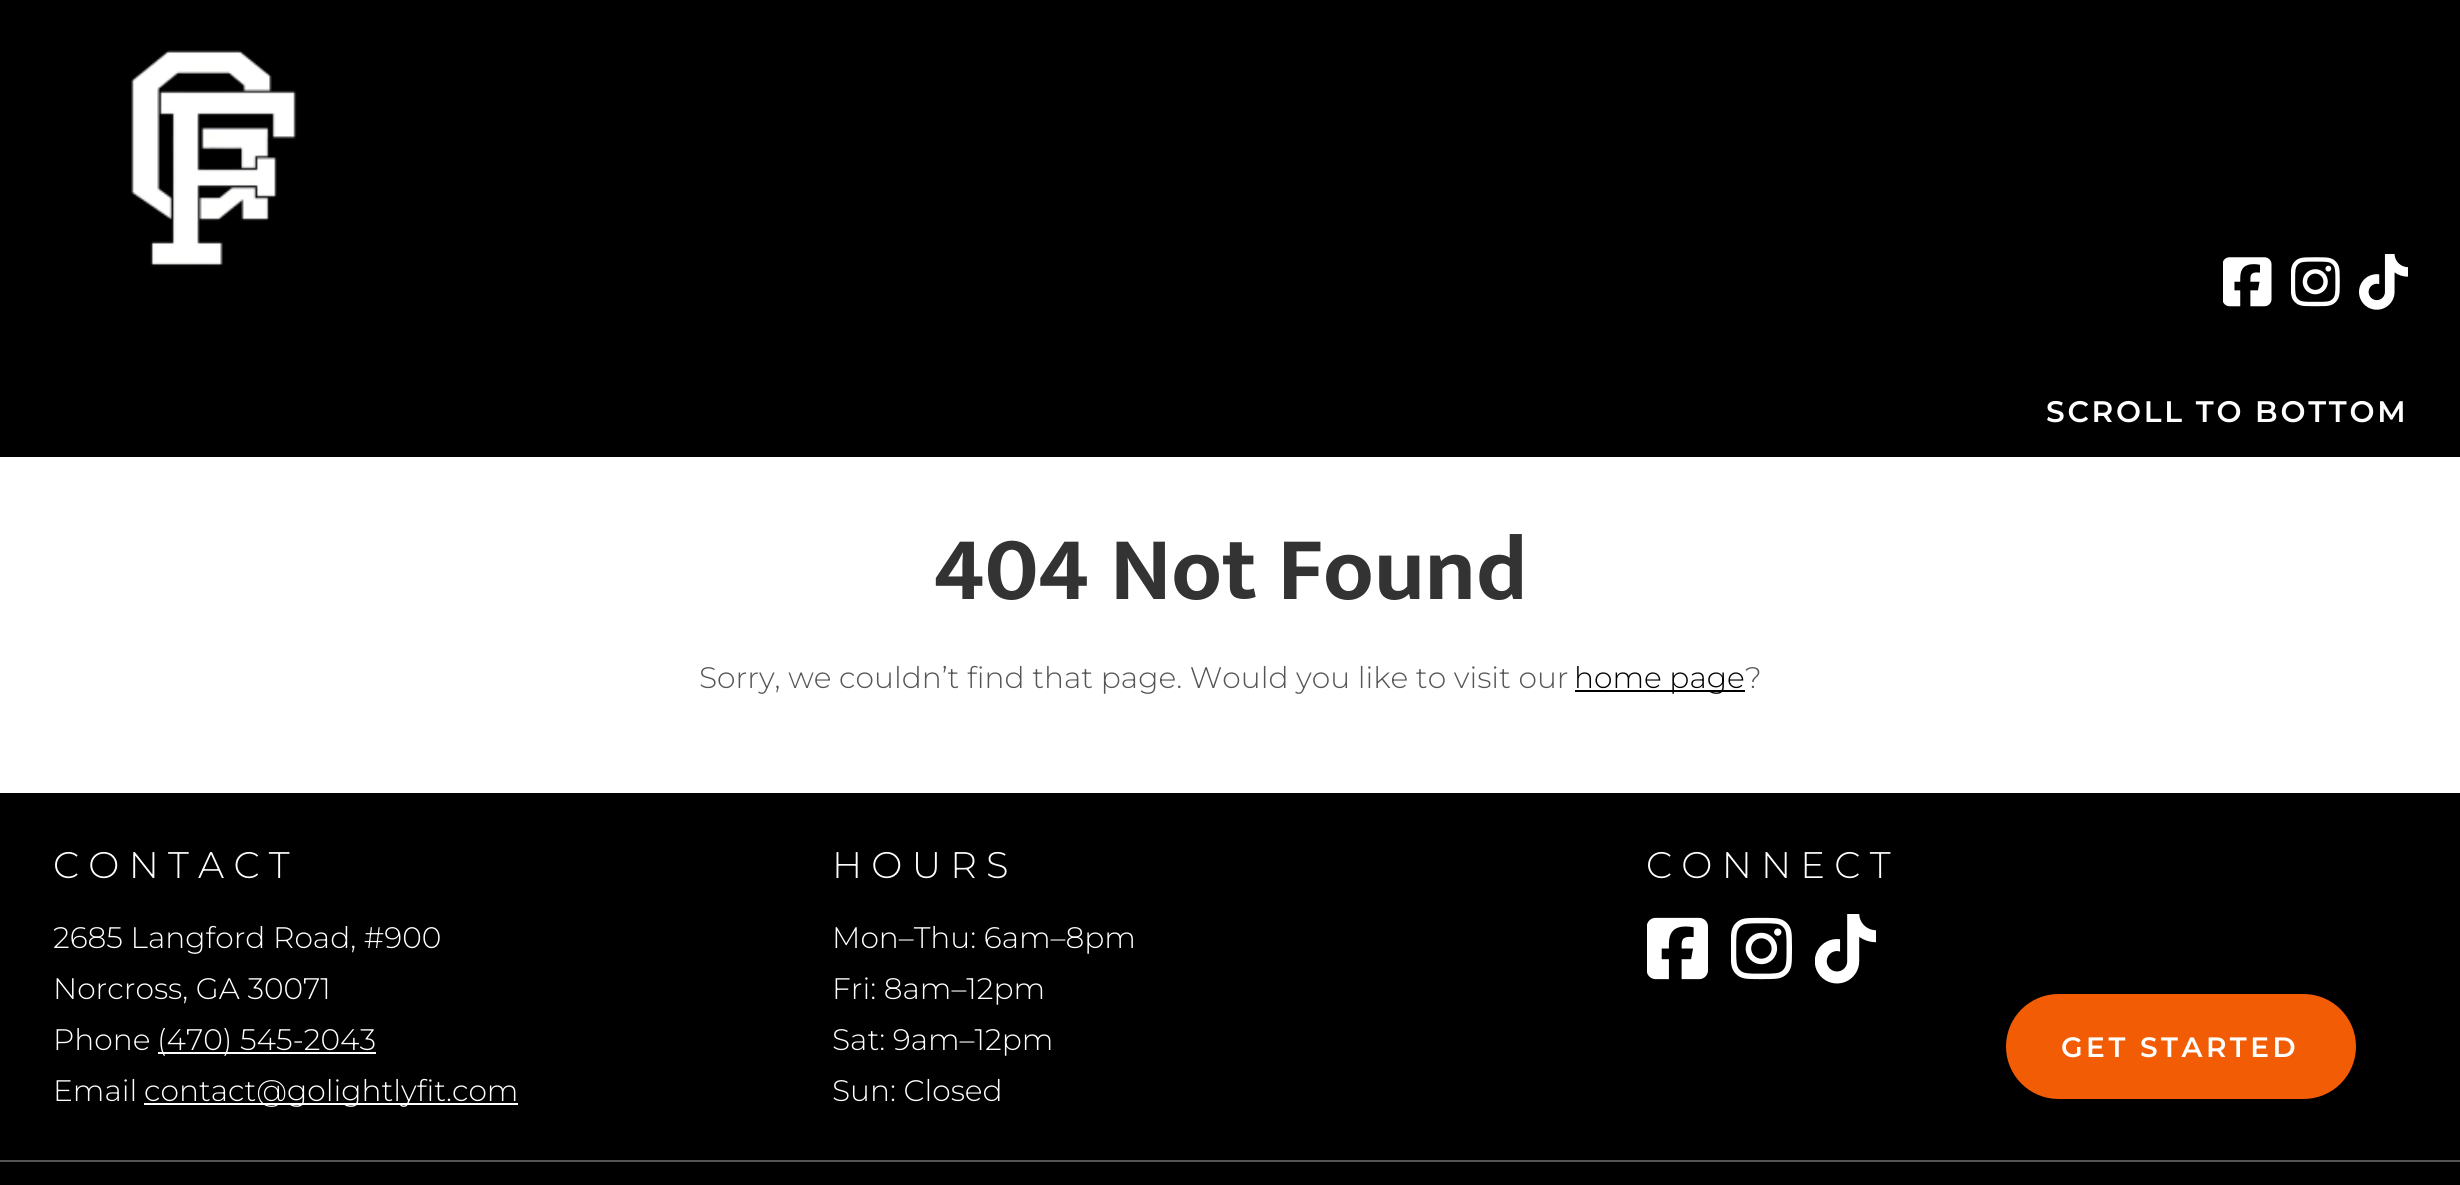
import math
import cairocffi as cairo

surface = cairo.ImageSurface(cairo.FORMAT_RGB24, 2460, 1185)
ctx = cairo.Context(surface)
options = cairo.FontOptions()
options.set_hint_metrics(cairo.HINT_METRICS_OFF)
options.set_hint_style(cairo.HINT_STYLE_NONE)
ctx.set_font_options(options)
ctx.set_miter_limit(4)


def rgb(r, g, b):
    ctx.set_source_rgb(r / 255, g / 255, b / 255)


def face(family, size, italic, bold):
    ctx.select_font_face(family, cairo.FONT_SLANT_ITALIC if italic else cairo.FONT_SLANT_NORMAL, cairo.FONT_WEIGHT_BOLD if bold else cairo.FONT_WEIGHT_NORMAL)
    ctx.set_font_size(size)


def label(x, y, s):
    ctx.move_to(x, y)
    ctx.show_text(s)


def tracked(x, y, s, letter, word):
    ctx.move_to(x, y)
    for ch in s:
        ctx.show_text(ch)
        ctx.rel_move_to(letter + word * (ch == ' '), 0)


def rect(x, y, w, h):
    ctx.rectangle(x, y, w, h)
    ctx.fill()


def rrect(x, y, w, h, r):
    ctx.new_sub_path()
    for i, (u, v) in enumerate([(x + w - r, y + h - r), (x + r, y + h - r), (x + r, y + r), (x + w - r, y + r)]):
        ctx.arc(u, v, r, i * math.pi / 2, (i + 1) * math.pi / 2)
    ctx.close_path()


def image(path, x, y, w, h):
    ctx.save()
    ctx.set_source_surface(cairo.ImageSurface.create_from_png(path), x, y)
    ctx.rectangle(x, y, w, h)
    ctx.fill()
    ctx.restore()


rgb(255, 255, 255)
ctx.paint()
rgb(0, 0, 0)
rect(0, 0, 2460, 457)
image('image0.png', 131, 50, 166, 216)
image('image1.png', 2223, 257, 49, 50)
image('image2.png', 2291, 257, 49, 50)
image('image3.png', 2359, 254, 49, 56)
face('Montserrat Thin', 29.7, 0, 0)
rgb(255, 255, 255)
tracked(2046, 422, 'SCROLL TO BOTTOM', 2.75, 0)
face('Mukta', 91, 0, 1)
rgb(51, 51, 51)
label(934, 599, '404 Not Found')
face('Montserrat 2 Thin', 29.7, 0, 0)
rgb(85, 85, 85)
label(699, 688, 'Sorry, we couldn’t find that page. Would you like to visit our')
rgb(0, 0, 0)
rect(1575, 690, 170, 2)
label(1574, 688, 'home page')
rgb(85, 85, 85)
label(1745, 688, '?')
rgb(0, 0, 0)
rect(0, 793, 2460, 392)
face('Montserrat 2 Thin', 37, 0, 0)
rgb(255, 255, 255)
tracked(53, 878, 'CONTACT', 9.25, 0)
face('Montserrat 2 Thin', 29.7, 0, 0)
label(53, 948, '2685 Langford Road, #900')
label(53, 999, 'Norcross, GA 30071')
label(53, 1050, 'Phone')
rect(158, 1052, 218, 2)
label(157, 1050, '(470) 545-2043')
label(53, 1101, 'Email')
rect(144, 1103, 374, 2)
label(144, 1101, 'contact@golightlyfit.com')
face('Montserrat 2 Thin', 37, 0, 0)
tracked(832, 878, 'HOURS', 9.25, 0)
face('Montserrat 2 Thin', 29.7, 0, 0)
label(832, 948, 'Mon–Thu: 6am–8pm')
label(832, 999, 'Fri: 8am–12pm')
label(832, 1050, 'Sat: 9am–12pm')
label(832, 1101, 'Sun: Closed')
face('Montserrat 2 Thin', 37, 0, 0)
tracked(1646, 878, 'CONNECT', 9.25, 0)
image('image4.png', 1647, 917, 61, 63)
image('image5.png', 1731, 917, 61, 63)
image('image6.png', 1815, 914, 61, 70)
rgb(85, 85, 85)
rect(0, 1160, 2460, 2)
rgb(242, 92, 5)
rrect(2006, 994, 350, 105, 52.5)
ctx.fill()
face('Montserrat Thin', 28, 0, 0)
rgb(255, 255, 255)
tracked(2061, 1057, 'GET STARTED', 3.5, 0)
surface.write_to_png('render.png')
